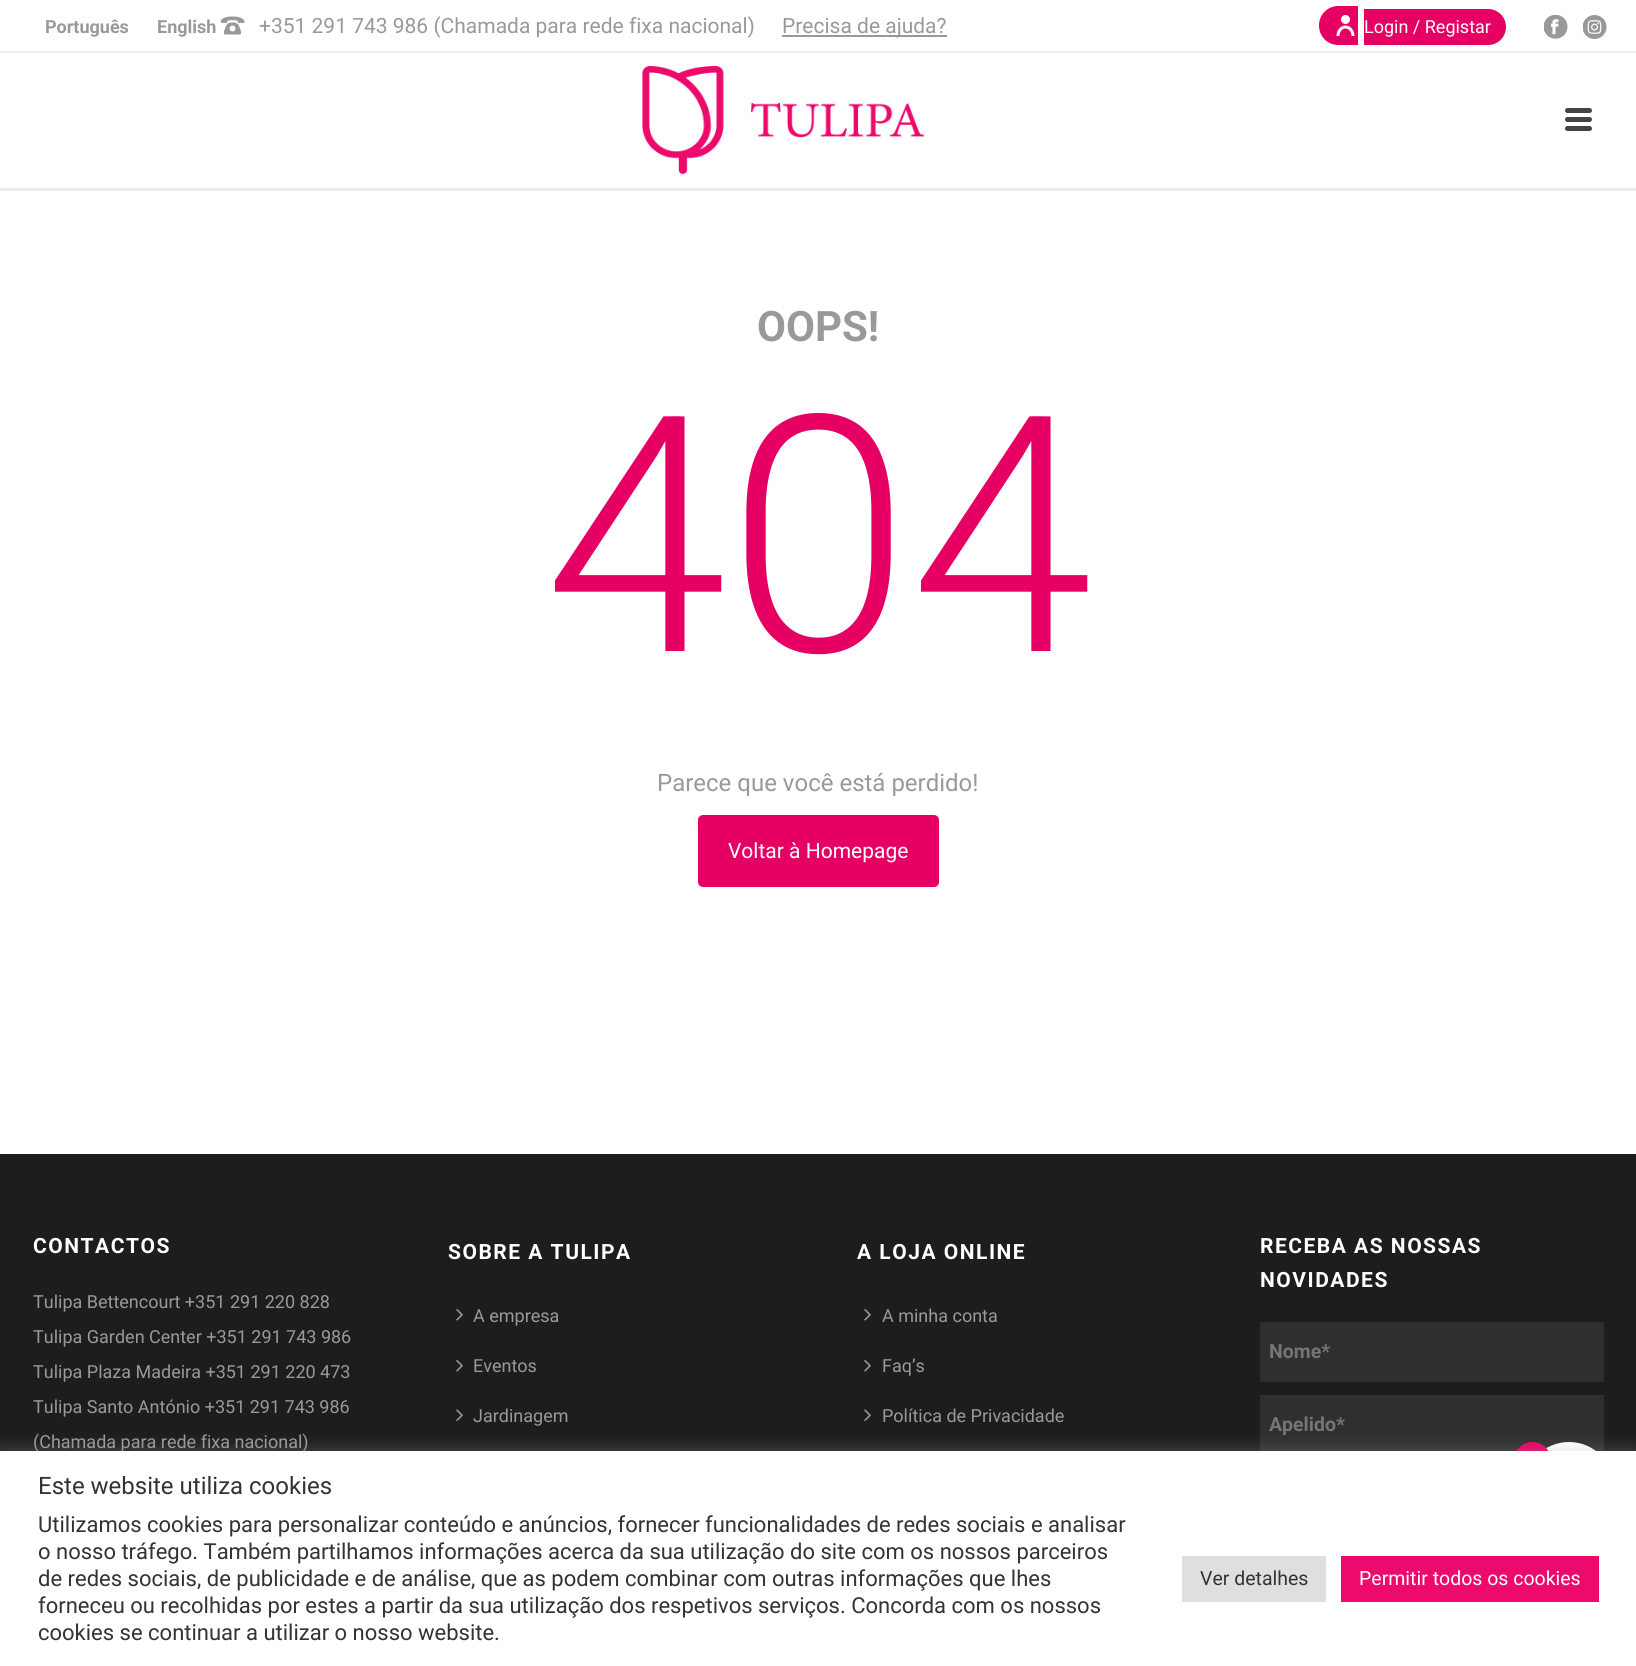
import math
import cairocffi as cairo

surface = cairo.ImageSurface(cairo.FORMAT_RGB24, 1636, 1666)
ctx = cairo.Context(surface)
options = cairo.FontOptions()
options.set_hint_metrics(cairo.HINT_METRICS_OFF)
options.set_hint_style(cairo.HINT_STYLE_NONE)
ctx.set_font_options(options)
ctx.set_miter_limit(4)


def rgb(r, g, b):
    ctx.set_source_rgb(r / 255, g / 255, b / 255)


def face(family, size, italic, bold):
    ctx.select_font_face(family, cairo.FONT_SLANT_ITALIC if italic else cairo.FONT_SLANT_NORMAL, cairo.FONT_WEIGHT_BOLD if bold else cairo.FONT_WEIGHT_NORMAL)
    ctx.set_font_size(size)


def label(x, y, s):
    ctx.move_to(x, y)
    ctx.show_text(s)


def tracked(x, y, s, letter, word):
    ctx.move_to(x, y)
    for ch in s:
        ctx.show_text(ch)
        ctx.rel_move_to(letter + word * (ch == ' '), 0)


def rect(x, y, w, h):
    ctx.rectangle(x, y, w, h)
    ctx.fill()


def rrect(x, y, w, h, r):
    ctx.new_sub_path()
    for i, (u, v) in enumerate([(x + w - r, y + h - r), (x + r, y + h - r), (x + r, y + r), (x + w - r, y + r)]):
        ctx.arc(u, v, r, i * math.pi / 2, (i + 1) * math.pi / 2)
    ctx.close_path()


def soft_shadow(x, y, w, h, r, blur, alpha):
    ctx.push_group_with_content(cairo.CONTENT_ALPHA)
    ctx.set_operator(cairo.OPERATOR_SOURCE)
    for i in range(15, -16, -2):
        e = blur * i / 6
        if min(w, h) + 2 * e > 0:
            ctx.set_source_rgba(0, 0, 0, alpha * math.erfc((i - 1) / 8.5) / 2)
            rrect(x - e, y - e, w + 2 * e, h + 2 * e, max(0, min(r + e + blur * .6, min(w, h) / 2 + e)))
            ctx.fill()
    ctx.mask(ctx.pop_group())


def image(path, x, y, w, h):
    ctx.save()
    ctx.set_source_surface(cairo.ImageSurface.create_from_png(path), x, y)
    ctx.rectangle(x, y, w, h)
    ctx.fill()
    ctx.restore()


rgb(255, 255, 255)
ctx.paint()
rgb(237, 237, 237)
rect(0, 188, 1636, 3)
rect(0, 51, 1636, 2)
face('Roboto', 18, 0, 1)
rgb(153, 153, 153)
label(45, 33, 'Português')
label(157, 33, 'English')
image('image0.png', 221, 16, 24, 19)
face('Roboto', 21, 0, 0)
label(259, 33, '+351 291 743 986 (Chamada para rede fixa nacional)')
rect(782, 35, 165, 2)
label(782, 33, 'Precisa de ajuda?')
rgb(230, 0, 100)
ctx.new_path()
ctx.move_to(1338.5, 6)
ctx.line_to(1358, 6)
ctx.line_to(1358, 45)
ctx.line_to(1338.5, 45)
ctx.curve_to(1327.5, 45, 1319, 36.5, 1319, 25.5)
ctx.curve_to(1319, 14.5, 1327.5, 6, 1338.5, 6)
ctx.close_path()
ctx.fill()
image('image1.png', 1336, 15, 19, 21)
ctx.new_path()
ctx.move_to(1364, 9)
ctx.line_to(1488, 9)
ctx.curve_to(1498, 9, 1506, 17, 1506, 27)
ctx.curve_to(1506, 37, 1498, 45, 1488, 45)
ctx.line_to(1364, 45)
ctx.close_path()
ctx.fill()
face('Roboto', 18, 0, 0)
rgb(255, 255, 255)
label(1364, 33, 'Login / Registar')
image('image2.png', 1544, 15, 24, 24)
image('image3.png', 1583, 15, 24, 24)
image('image4.png', 642, 66, 282, 108)
rgb(68, 68, 68)
rrect(1565, 108, 27, 5, 2.5)
ctx.fill()
rrect(1565, 117, 27, 5, 2.5)
ctx.fill()
rrect(1565, 126, 27, 5, 2.5)
ctx.fill()
face('Roboto', 42, 0, 1)
rgb(153, 153, 153)
label(757, 341, 'OOPS!')
face('Roboto Light', 330, 0, 0)
rgb(230, 0, 100)
label(544, 651, '404')
face('Roboto', 24, 0, 0)
rgb(153, 153, 153)
label(657, 791, 'Parece que você está perdido!')
rgb(230, 0, 100)
rrect(698, 815, 241, 72, 5)
ctx.fill()
face('Roboto', 21, 0, 0)
rgb(255, 255, 255)
label(728, 858, 'Voltar à Homepage')
rgb(29, 29, 27)
rect(0, 1154, 1636, 297)
face('Roboto', 21, 0, 1)
rgb(255, 255, 255)
tracked(33, 1253, 'CONTACTOS', 1.5, 0)
face('Roboto', 18, 0, 0)
rgb(153, 153, 153)
label(33, 1308, 'Tulipa Bettencourt +351 291 220 828')
label(33, 1343, 'Tulipa Garden Center +351 291 743 986')
label(33, 1378, 'Tulipa Plaza Madeira +351 291 220 473')
label(33, 1413, 'Tulipa Santo António +351 291 743 986')
label(33, 1448, '(Chamada para rede fixa nacional)')
face('Roboto', 21, 0, 1)
rgb(255, 255, 255)
tracked(448, 1259, 'SOBRE A TULIPA', 1.5, 0)
image('image5.png', 456, 1309, 7, 12)
face('Roboto', 18, 0, 0)
rgb(153, 153, 153)
label(473, 1322, 'A empresa')
image('image5.png', 456, 1360, 7, 12)
label(473, 1372, 'Eventos')
image('image6.png', 456, 1409, 7, 12)
label(473, 1422, 'Jardinagem')
face('Roboto', 21, 0, 1)
rgb(255, 255, 255)
tracked(857, 1259, 'A LOJA ONLINE', 1.5, 0)
image('image5.png', 864, 1309, 7, 12)
face('Roboto', 18, 0, 0)
rgb(153, 153, 153)
label(882, 1322, 'A minha conta')
image('image5.png', 864, 1360, 7, 12)
label(882, 1372, 'Faq’s')
image('image6.png', 864, 1409, 7, 12)
label(882, 1422, 'Política de Privacidade')
face('Roboto', 21, 0, 1)
rgb(255, 255, 255)
tracked(1260, 1253, 'RECEBA AS NOSSAS', 1.5, 0)
tracked(1260, 1287, 'NOVIDADES', 1.5, 0)
rgb(47, 47, 45)
rect(1260, 1322, 344, 60)
face('Roboto', 19.5, 0, 1)
rgb(117, 117, 117)
label(1269, 1358, 'Nome*')
rgb(47, 47, 45)
rect(1260, 1395, 344, 56)
rgb(117, 117, 117)
label(1269, 1431, 'Apelido*')
rgb(0, 0, 0)
soft_shadow(1526, 1443, 90, 90, 45, 2, 0.2)
rgb(255, 255, 255)
ctx.arc(1569, 1487, 45, 0, 2 * math.pi)
ctx.fill()
rgb(230, 0, 100)
ctx.arc(1532.5, 1460.5, 18.5, 0, 2 * math.pi)
ctx.fill()
rgb(172, 171, 171)
soft_shadow(0, 1449, 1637, 216, 0, 7.5, 0.3)
rgb(255, 255, 255)
rect(0, 1451, 1636, 215)
face('Roboto', 24, 0, 0)
rgb(51, 51, 51)
label(38, 1494, 'Este website utiliza cookies')
face('Roboto', 22, 0, 0)
label(38, 1532, 'Utilizamos cookies para personalizar conteúdo e anúncios, fornecer funcionalidades de redes sociais e analisar')
label(38, 1559, 'o nosso tráfego. Também partilhamos informações acerca da sua utilização do site com os nossos parceiros')
label(38, 1586, 'de redes sociais, de publicidade e de análise, que as podem combinar com outras informações que lhes')
label(38, 1613, 'forneceu ou recolhidas por estes a partir da sua utilização dos respetivos serviços. Concorda com os nossos')
label(38, 1640, 'cookies se continuar a utilizar o nosso website.')
rgb(222, 223, 224)
rect(1182, 1556, 144, 46)
face('Roboto', 19.5, 0, 0)
rgb(51, 51, 51)
label(1200, 1585, 'Ver detalhes')
rgb(236, 11, 109)
rect(1341, 1556, 258, 46)
rgb(255, 255, 255)
label(1359, 1585, 'Permitir todos os cookies')
surface.write_to_png('render.png')
